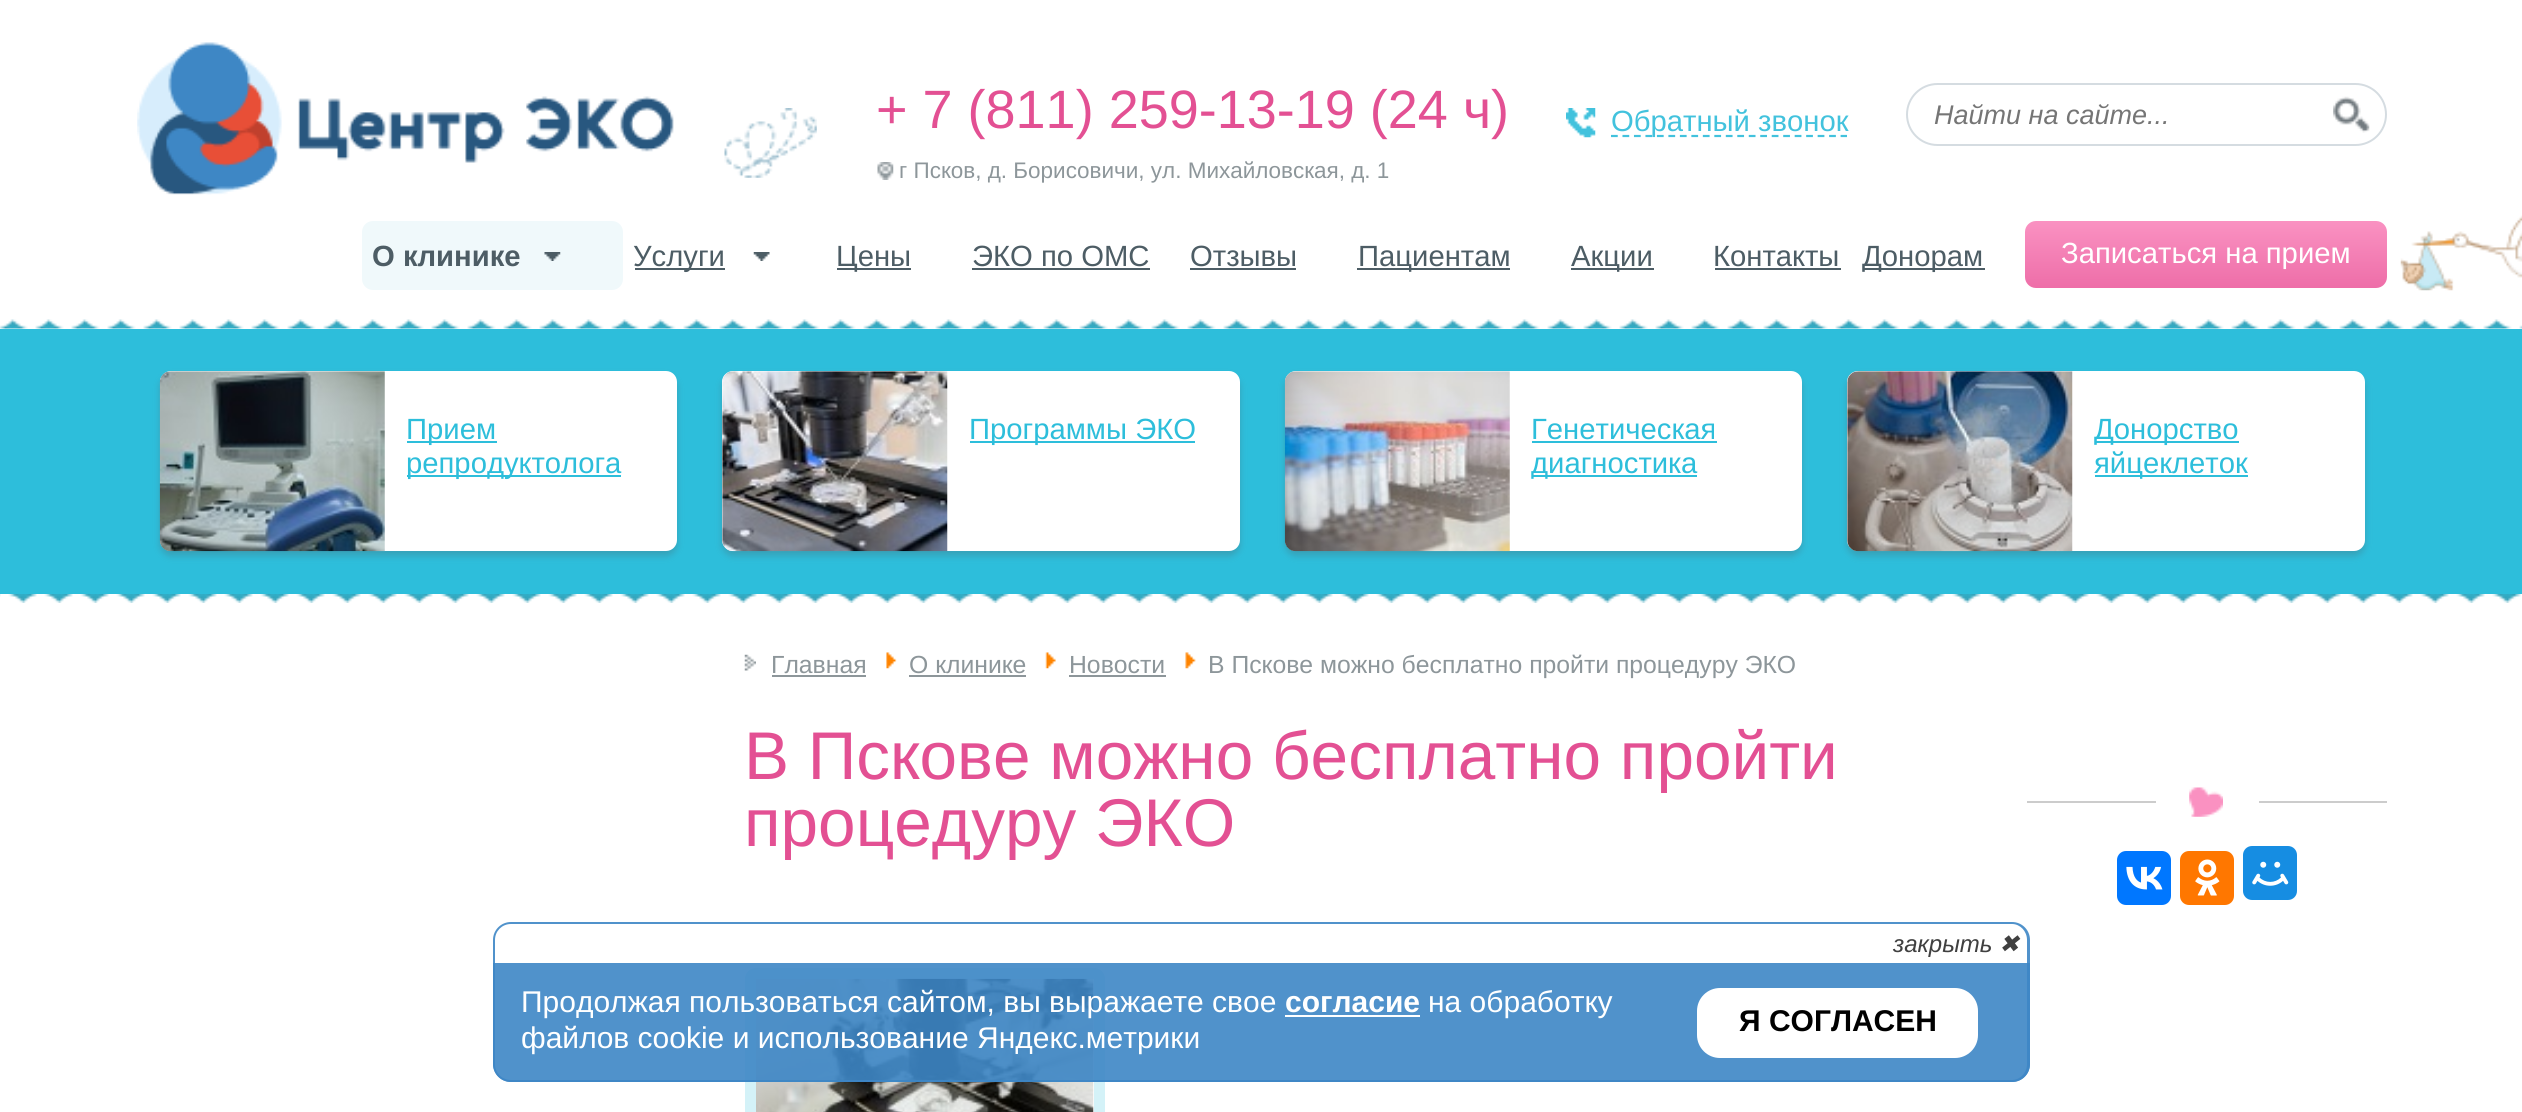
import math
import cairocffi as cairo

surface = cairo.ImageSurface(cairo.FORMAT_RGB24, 2522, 1112)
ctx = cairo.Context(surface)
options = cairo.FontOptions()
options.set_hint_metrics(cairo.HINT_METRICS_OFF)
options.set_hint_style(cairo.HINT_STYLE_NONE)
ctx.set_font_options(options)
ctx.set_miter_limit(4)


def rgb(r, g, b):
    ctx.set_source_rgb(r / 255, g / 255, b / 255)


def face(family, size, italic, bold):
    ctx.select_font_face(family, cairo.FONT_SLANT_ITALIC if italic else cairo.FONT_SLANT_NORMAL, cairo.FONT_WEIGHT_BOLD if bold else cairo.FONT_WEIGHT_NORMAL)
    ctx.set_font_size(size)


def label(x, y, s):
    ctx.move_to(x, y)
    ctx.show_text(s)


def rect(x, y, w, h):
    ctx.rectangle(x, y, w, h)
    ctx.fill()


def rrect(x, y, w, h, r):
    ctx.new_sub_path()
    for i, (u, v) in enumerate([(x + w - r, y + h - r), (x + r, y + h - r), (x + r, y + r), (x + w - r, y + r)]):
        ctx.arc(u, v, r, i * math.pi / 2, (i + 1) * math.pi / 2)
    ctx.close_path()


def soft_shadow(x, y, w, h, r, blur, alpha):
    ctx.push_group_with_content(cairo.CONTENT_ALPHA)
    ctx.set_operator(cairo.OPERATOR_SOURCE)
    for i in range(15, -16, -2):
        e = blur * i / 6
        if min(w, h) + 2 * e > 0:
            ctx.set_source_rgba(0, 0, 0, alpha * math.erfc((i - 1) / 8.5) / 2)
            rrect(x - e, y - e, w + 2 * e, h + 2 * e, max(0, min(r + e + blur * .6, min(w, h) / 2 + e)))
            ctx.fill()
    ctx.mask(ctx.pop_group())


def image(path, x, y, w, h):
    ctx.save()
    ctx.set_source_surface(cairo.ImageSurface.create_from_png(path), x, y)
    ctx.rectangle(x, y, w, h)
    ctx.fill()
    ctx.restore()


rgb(255, 255, 255)
ctx.paint()
image('image0.png', 137, 42, 537, 153)
image('image1.png', 724, 108, 93, 70)
face('Liberation Sans', 54, 0, 0)
rgb(227, 80, 147)
label(876, 128, '+ 7 (811) 259-13-19 (24 ч)')
image('image2.png', 877, 162, 17, 18)
face('Liberation Sans', 22.5, 0, 0)
rgb(141, 150, 154)
label(899, 178, 'г Псков, д. Борисовичи, ул. Михайловская, д. 1')
image('image3.png', 1566, 108, 30, 30)
ctx.new_path()
ctx.move_to(1611, 136)
ctx.line_to(1847, 136)
rgb(66, 194, 221)
ctx.set_line_width(2.2)
ctx.set_dash([6.75, 4.73])
ctx.stroke()
face('Liberation Sans', 29.25, 0, 0)
label(1611, 131, 'Обратный звонок')
rrect(1907, 84, 479, 61, 30.5)
rgb(213, 220, 225)
ctx.set_line_width(2)
ctx.set_dash([])
ctx.stroke()
face('Liberation Sans', 27, 1, 0)
rgb(117, 117, 117)
label(1934, 124, 'Найти на сайте...')
image('image4.png', 2333, 96, 37, 37)
rgb(240, 249, 251)
rrect(362, 221, 261, 69, 11)
ctx.fill()
face('Liberation Sans', 29.25, 0, 1)
rgb(77, 93, 101)
label(372, 266, 'О клинике')
image('image5.png', 544, 252, 17, 9)
rect(635, 268, 90, 2)
face('Liberation Sans', 29.25, 0, 0)
label(633, 266, 'Услуги')
image('image6.png', 753, 252, 17, 9)
rect(837, 268, 74, 2)
label(836, 266, 'Цены')
label(972, 266, 'ЭКО по ОМС')
rect(972, 268, 178, 2)
label(1190, 266, 'Отзывы')
rect(1190, 268, 106, 2)
rect(1357, 268, 153, 2)
label(1358, 266, 'Пациентам')
rect(1571, 268, 83, 2)
label(1571, 266, 'Акции')
label(1713, 266, 'Контакты')
rect(1715, 268, 126, 2)
rect(1863, 268, 122, 2)
label(1862, 266, 'Донорам')
gradient = cairo.LinearGradient(2206, 220, 2206, 288)
gradient.add_color_stop_rgba(0, 0.98, 0.573, 0.761, 1)
gradient.add_color_stop_rgba(1, 0.933, 0.431, 0.659, 1)
ctx.set_source(gradient)
rrect(2025, 221, 362, 67, 11)
ctx.fill()
rgb(255, 255, 255)
label(2061, 263, 'Записаться на прием')
image('image7.png', 2400, 215, 122, 76)
rgb(45, 190, 219)
rect(0, 329, 2522, 265)
image('image8.png', 0, 319, 2522, 10)
rgb(77, 93, 101)
soft_shadow(160, 376, 517, 180, 11, 3.5, 0.3)
rgb(255, 255, 255)
rrect(160, 371, 517, 180, 11)
ctx.fill()
image('image9.png', 159, 371, 226, 181)
rgb(45, 190, 219)
rect(407, 441, 90, 2)
label(406, 439, 'Прием')
rect(407, 475, 214, 2)
label(406, 473, 'репродуктолога')
rgb(77, 93, 101)
soft_shadow(722, 376, 518, 180, 11, 3.5, 0.3)
rgb(255, 255, 255)
rrect(722, 371, 518, 180, 11)
ctx.fill()
image('image10.png', 722, 371, 226, 181)
rgb(45, 190, 219)
rect(970, 441, 225, 2)
label(969, 439, 'Программы ЭКО')
rgb(77, 93, 101)
soft_shadow(1285, 376, 517, 180, 11, 3.5, 0.3)
rgb(255, 255, 255)
rrect(1285, 371, 517, 180, 11)
ctx.fill()
image('image11.png', 1284, 371, 226, 181)
rgb(45, 190, 219)
label(1531, 439, 'Генетическая')
rect(1532, 441, 185, 2)
rect(1532, 475, 165, 2)
label(1531, 473, 'диагностика')
rgb(77, 93, 101)
soft_shadow(1847, 376, 518, 180, 11, 3.5, 0.3)
rgb(255, 255, 255)
rrect(1847, 371, 518, 180, 11)
ctx.fill()
image('image12.png', 1847, 371, 226, 181)
rgb(45, 190, 219)
rect(2095, 441, 144, 2)
label(2094, 439, 'Донорство')
rect(2095, 475, 153, 2)
label(2094, 473, 'яйцеклеток')
image('image13.png', 0, 594, 2521, 9)
image('image14.png', 744, 654, 12, 17)
face('Liberation Sans', 24.75, 0, 0)
rgb(141, 150, 154)
label(771, 673, 'Главная')
rect(772, 675, 94, 2)
image('image15.png', 886, 652, 11, 17)
label(909, 673, 'О клинике')
rect(909, 675, 117, 2)
image('image16.png', 1045, 652, 11, 17)
label(1069, 673, 'Новости')
rect(1069, 675, 97, 2)
image('image17.png', 1185, 652, 11, 17)
label(1208, 673, 'В Пскове можно бесплатно пройти процедуру ЭКО')
face('Liberation Sans', 67.5, 0, 0)
rgb(227, 80, 147)
label(744, 779, 'В Пскове можно бесплатно пройти')
label(744, 846, 'процедуру ЭКО')
rrect(750.5, 973.5, 349, 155, 5.5)
rgb(212, 242, 248)
ctx.set_line_width(11)
ctx.stroke()
image('image18.png', 756, 978, 338, 134)
image('image19.png', 2189, 787, 34, 30)
rgb(204, 204, 204)
rect(2027, 801, 129, 2)
rect(2259, 801, 128, 2)
rgb(0, 119, 255)
rrect(2117, 851, 54, 54, 9)
ctx.fill()
image('image20.png', 2126, 866, 37, 24)
rgb(255, 119, 0)
rrect(2180, 851, 54, 54, 9)
ctx.fill()
image('image21.png', 2195, 859, 25, 37)
rgb(22, 141, 226)
rrect(2243, 846, 54, 54, 9)
ctx.fill()
image('image22.png', 2252, 861, 37, 25)
ctx.set_source_rgba(0.243, 0.529, 0.773, 0.9)
ctx.set_fill_rule(cairo.FILL_RULE_EVEN_ODD)
ctx.new_path()
ctx.move_to(511, 922)
ctx.line_to(2012, 922)
ctx.curve_to(2022, 922, 2030, 930, 2030, 940)
ctx.line_to(2030, 963)
ctx.line_to(493, 963)
ctx.line_to(493, 940)
ctx.curve_to(493, 930, 501, 922, 511, 922)
ctx.close_path()
ctx.move_to(511, 924)
ctx.line_to(2012, 924)
ctx.curve_to(2020, 924, 2027, 931, 2027, 940)
ctx.line_to(2027, 963)
ctx.line_to(495, 963)
ctx.line_to(495, 940)
ctx.curve_to(495, 931, 502, 924, 511, 924)
ctx.close_path()
ctx.fill()
face('Liberation Sans', 24, 1, 0)
rgb(64, 64, 64)
label(1893, 952, 'закрыть')
face('DejaVu Sans', 24, 1, 0)
label(1999, 952, '✖')
ctx.set_source_rgba(0.243, 0.529, 0.773, 0.9)
ctx.new_path()
ctx.move_to(493, 963)
ctx.line_to(2030, 963)
ctx.line_to(2030, 1064)
ctx.curve_to(2030, 1074, 2022, 1082, 2012, 1082)
ctx.line_to(511, 1082)
ctx.curve_to(501, 1082, 493, 1074, 493, 1064)
ctx.close_path()
ctx.fill()
ctx.new_path()
ctx.move_to(493, 963)
ctx.line_to(2030, 963)
ctx.line_to(2030, 1064)
ctx.curve_to(2030, 1074, 2022, 1082, 2012, 1082)
ctx.line_to(511, 1082)
ctx.curve_to(501, 1082, 493, 1074, 493, 1064)
ctx.close_path()
ctx.move_to(495, 963)
ctx.line_to(2027, 963)
ctx.line_to(2027, 1064)
ctx.curve_to(2027, 1073, 2020, 1080, 2012, 1080)
ctx.line_to(511, 1080)
ctx.curve_to(502, 1080, 495, 1073, 495, 1064)
ctx.close_path()
ctx.fill()
face('Liberation Sans', 30, 0, 0)
rgb(255, 255, 255)
label(521, 1012, 'Продолжая пользоваться сайтом, вы выражаете свое')
face('Liberation Sans', 30, 0, 1)
label(1285, 1012, 'согласие')
rect(1285, 1015, 135, 2)
face('Liberation Sans', 30, 0, 0)
label(1428, 1012, 'на обработку')
label(521, 1048, 'файлов cookie и использование Яндекс.метрики')
rrect(1697, 988, 281, 70, 23)
ctx.fill()
face('Liberation Sans', 30, 0, 1)
rgb(0, 0, 0)
label(1739, 1031, 'Я СОГЛАСЕН')
surface.write_to_png('render.png')
